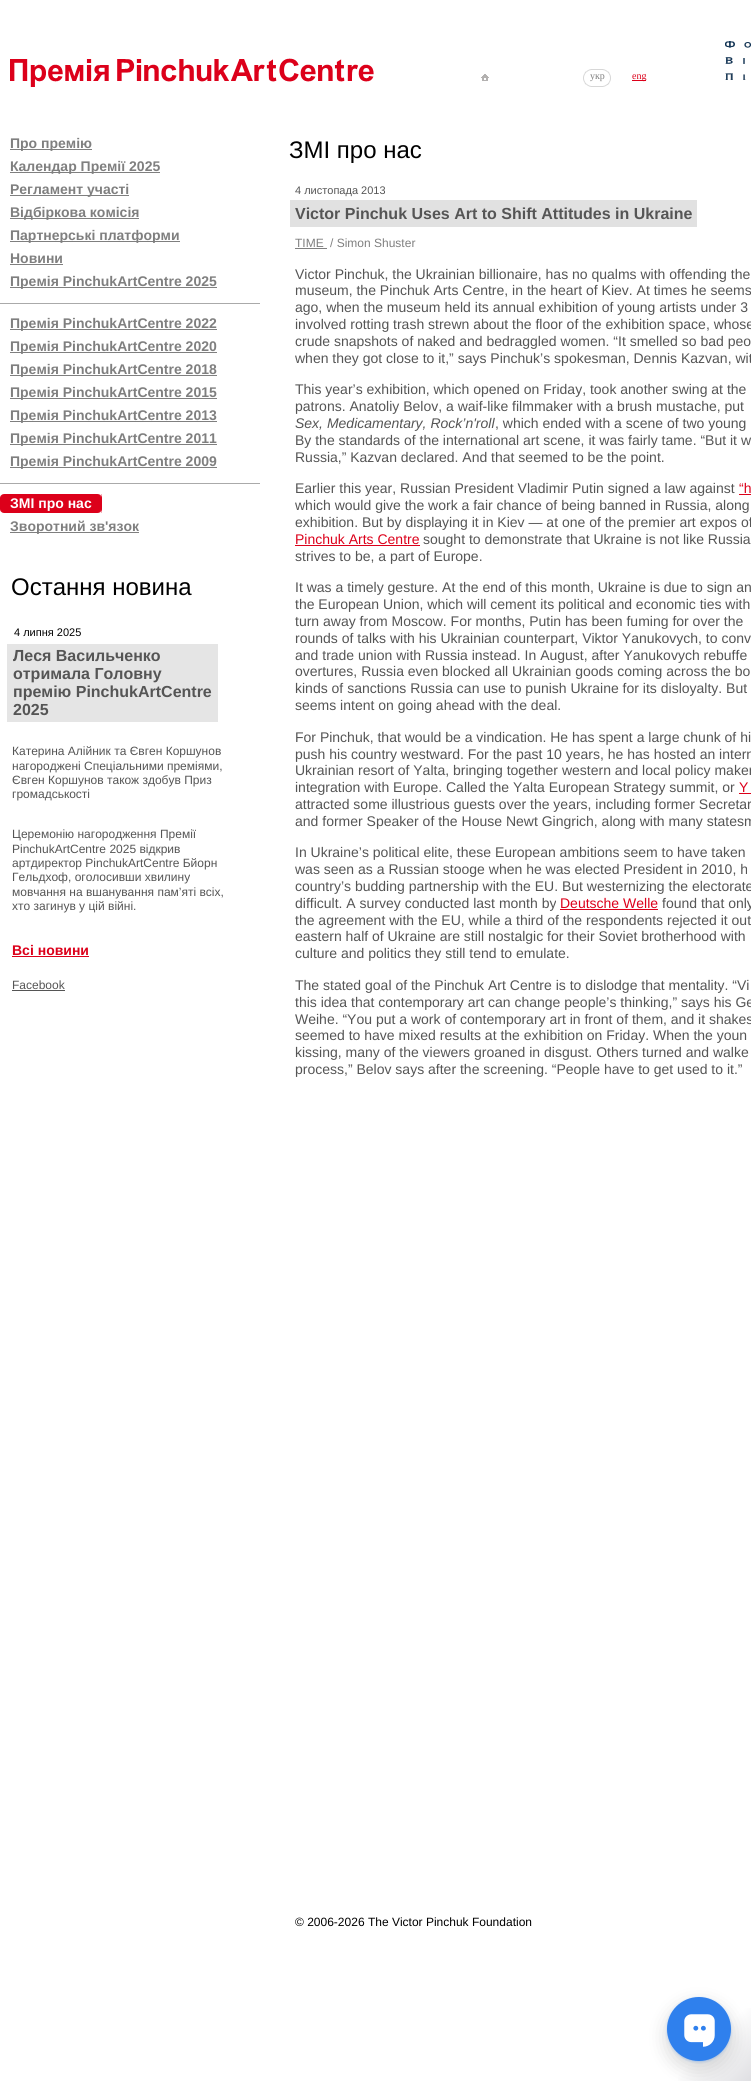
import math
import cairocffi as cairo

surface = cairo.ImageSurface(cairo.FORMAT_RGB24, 751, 2081)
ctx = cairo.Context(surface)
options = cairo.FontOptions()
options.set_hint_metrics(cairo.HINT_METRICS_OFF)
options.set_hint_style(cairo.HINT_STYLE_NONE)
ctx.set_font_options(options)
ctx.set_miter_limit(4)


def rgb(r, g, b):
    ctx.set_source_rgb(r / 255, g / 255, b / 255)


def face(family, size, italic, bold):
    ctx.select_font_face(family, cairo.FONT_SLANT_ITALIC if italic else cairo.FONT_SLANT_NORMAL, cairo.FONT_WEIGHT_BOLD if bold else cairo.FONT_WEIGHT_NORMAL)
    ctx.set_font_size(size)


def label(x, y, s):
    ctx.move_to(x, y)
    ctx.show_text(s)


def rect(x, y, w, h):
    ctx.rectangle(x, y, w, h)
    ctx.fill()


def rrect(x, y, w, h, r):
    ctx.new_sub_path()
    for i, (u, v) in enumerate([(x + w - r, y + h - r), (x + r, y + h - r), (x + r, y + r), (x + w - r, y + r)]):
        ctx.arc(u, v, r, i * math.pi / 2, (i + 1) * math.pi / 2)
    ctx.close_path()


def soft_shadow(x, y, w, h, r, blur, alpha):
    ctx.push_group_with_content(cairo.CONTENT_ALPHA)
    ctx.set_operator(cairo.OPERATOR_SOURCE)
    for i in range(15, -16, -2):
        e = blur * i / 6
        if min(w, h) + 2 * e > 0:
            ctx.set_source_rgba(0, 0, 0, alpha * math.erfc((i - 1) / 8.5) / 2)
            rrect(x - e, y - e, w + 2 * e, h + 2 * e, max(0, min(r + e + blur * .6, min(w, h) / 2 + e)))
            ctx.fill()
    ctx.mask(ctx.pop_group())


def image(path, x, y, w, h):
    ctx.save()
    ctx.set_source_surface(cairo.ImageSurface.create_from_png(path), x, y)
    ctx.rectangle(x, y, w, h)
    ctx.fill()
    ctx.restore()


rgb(255, 255, 255)
ctx.paint()
image('image0.png', 10, 58, 364, 29)
image('image1.png', 481, 74, 8, 7)
image('image2.png', 583, 69, 28, 18)
face('Liberation Serif', 10, 0, 0)
rgb(127, 127, 127)
label(590, 79, 'укр')
rgb(220, 0, 26)
rect(632, 80, 14, 1)
label(632, 79, 'eng')
image('image3.png', 725, 41, 26, 39)
rgb(127, 127, 127)
rect(10, 149, 82, 1)
face('Liberation Sans', 14, 0, 1)
label(10, 148, 'Про премію')
rect(10, 172, 150, 1)
label(10, 171, 'Календар Премії 2025')
rect(10, 195, 119, 1)
label(10, 194, 'Регламент участі')
rect(10, 218, 129, 1)
label(10, 217, 'Відбіркова комісія')
rect(10, 241, 170, 1)
label(10, 240, 'Партнерські платформи')
label(10, 263, 'Новини')
rect(10, 264, 53, 1)
rect(10, 287, 207, 1)
label(10, 286, 'Премія PinchukArtCentre 2025')
rgb(170, 170, 170)
rect(0, 303, 260, 1)
rgb(127, 127, 127)
rect(10, 329, 207, 1)
label(10, 328, 'Премія PinchukArtCentre 2022')
rect(10, 352, 207, 1)
label(10, 351, 'Премія PinchukArtCentre 2020')
rect(10, 375, 207, 1)
label(10, 374, 'Премія PinchukArtCentre 2018')
rect(10, 398, 207, 1)
label(10, 397, 'Премія PinchukArtCentre 2015')
rect(10, 421, 207, 1)
label(10, 420, 'Премія PinchukArtCentre 2013')
rect(10, 444, 207, 1)
label(10, 443, 'Премія PinchukArtCentre 2011')
rect(10, 467, 207, 1)
label(10, 466, 'Премія PinchukArtCentre 2009')
rgb(170, 170, 170)
rect(0, 483, 260, 1)
image('image4.png', 80, 494, 22, 19)
image('image5.png', 0, 494, 80, 19)
rgb(255, 255, 255)
label(10, 508, 'ЗМІ про нас')
rgb(127, 127, 127)
rect(10, 532, 129, 1)
label(10, 531, 'Зворотний зв\'язок')
face('Liberation Sans', 24, 0, 0)
rgb(0, 0, 0)
label(11, 595, 'Остання новина')
face('Liberation Sans', 11, 0, 0)
label(14, 636, '4 липня 2025')
rgb(229, 229, 229)
rect(7, 644, 211, 78)
face('Liberation Sans', 16, 0, 1)
rgb(85, 85, 85)
label(13, 661, 'Леся Васильченко')
label(13, 679, 'отримала Головну')
label(13, 697, 'премію PinchukArtCentre')
label(13, 715, '2025')
face('Liberation Sans', 12, 0, 0)
label(12, 755, 'Катерина Алійник та Євген Коршунов')
label(12, 770, 'нагороджені Спеціальними преміями,')
label(12, 784, 'Євген Коршунов також здобув Приз')
label(12, 798, 'громадськості')
label(12, 838, 'Церемонію нагородження Премії')
label(12, 853, 'PinchukArtCentre 2025 відкрив')
label(12, 867, 'артдиректор PinchukArtCentre Бйорн')
label(12, 881, 'Гельдхоф, оголосивши хвилину')
label(12, 896, 'мовчання на вшанування пам’яті всіх,')
label(12, 910, 'хто загинув у цій війні.')
face('Liberation Sans', 14, 0, 1)
rgb(220, 0, 26)
label(12, 955, 'Всі новини')
rect(12, 956, 77, 1)
face('Liberation Sans', 12, 0, 0)
rgb(85, 85, 85)
label(12, 989, 'Facebook')
rect(12, 990, 53, 1)
face('Liberation Sans', 24, 0, 0)
rgb(0, 0, 0)
label(289, 158, 'ЗМІ про нас')
face('Liberation Sans', 11, 0, 0)
rgb(85, 85, 85)
label(295, 194, '4 листопада 2013')
rgb(225, 225, 225)
rect(290, 200, 407, 27)
face('Liberation Sans', 16, 0, 1)
rgb(85, 85, 85)
label(295, 219, 'Victor Pinchuk Uses Art to Shift Attitudes in Ukraine')
face('Liberation Sans', 12, 0, 0)
rgb(127, 127, 127)
label(295, 247, 'TIME')
rect(295, 248, 32, 1)
label(330, 247, '/ Simon Shuster')
face('Liberation Sans', 14, 0, 0)
rgb(85, 85, 85)
label(295, 279, 'Victor Pinchuk, the Ukrainian billionaire, has no qualms with offending the')
label(295, 295, 'museum, the Pinchuk Arts Centre, in the heart of Kiev. At times he seems')
label(295, 312, 'ago, when the museum held its annual exhibition of young artists under 3')
label(295, 329, 'involved rotting trash strewn about the floor of the exhibition space, whose')
label(295, 346, 'crude snapshots of naked and bedraggled women. “It smelled so bad peo')
label(295, 363, 'when they got close to it,” says Pinchuk’s spokesman, Dennis Kazvan, wit')
label(295, 394, 'This year’s exhibition, which opened on Friday, took another swing at the')
label(295, 411, 'patrons. Anatoliy Belov, a waif-like filmmaker with a brush mustache, put')
face('Liberation Sans', 14, 1, 0)
label(295, 428, 'Sex, Medicamentary, Rock’n\'roll')
face('Liberation Sans', 14, 0, 0)
label(495, 428, ', which ended with a scene of two young')
label(295, 445, 'By the standards of the international art scene, it was fairly tame. “But it w')
label(295, 462, 'Russia,” Kazvan declared. And that seemed to be the point.')
label(295, 493, 'Earlier this year, Russian President Vladimir Putin signed a law against')
rgb(220, 0, 26)
label(739, 493, '“h')
rect(739, 494, 12, 1)
rgb(85, 85, 85)
label(295, 510, 'which would give the work a fair chance of being banned in Russia, along')
label(295, 527, 'exhibition. But by displaying it in Kiev — at one of the premier art expos of')
rgb(220, 0, 26)
label(295, 544, 'Pinchuk Arts Centre')
rect(295, 545, 125, 1)
rgb(85, 85, 85)
label(423, 544, 'sought to demonstrate that Ukraine is not like Russia')
label(295, 561, 'strives to be, a part of Europe.')
label(295, 592, 'It was a timely gesture. At the end of this month, Ukraine is due to sign an')
label(295, 609, 'the European Union, which will cement its political and economic ties with')
label(295, 626, 'turn away from Moscow. For months, Putin has been fuming for over the')
label(295, 643, 'rounds of talks with his Ukrainian counterpart, Viktor Yanukovych, to conv')
label(295, 660, 'and trade union with Russia instead. In August, after Yanukovych rebuffe')
label(295, 676, 'overtures, Russia even blocked all Ukrainian goods coming across the bo')
label(295, 693, 'kinds of sanctions Russia can use to punish Ukraine for its disloyalty. But')
label(295, 710, 'seems intent on going ahead with the deal.')
label(295, 742, 'For Pinchuk, that would be a vindication. He has spent a large chunk of hi')
label(295, 759, 'push his country westward. For the past 10 years, he has hosted an intern')
label(295, 775, 'Ukrainian resort of Yalta, bringing together western and local policy maker')
label(295, 792, 'integration with Europe. Called the Yalta European Strategy summit, or')
rgb(220, 0, 26)
label(739, 792, 'Y')
rect(739, 793, 12, 1)
rgb(85, 85, 85)
label(295, 809, 'attracted some illustrious guests over the years, including former Secretar')
label(295, 826, 'and former Speaker of the House Newt Gingrich, along with many statesm')
label(295, 857, 'In Ukraine’s political elite, these European ambitions seem to have taken')
label(295, 874, 'was seen as a Russian stooge when he was elected President in 2010, h')
label(295, 891, 'country’s budding partnership with the EU. But westernizing the electorate')
label(295, 908, 'difficult. A survey conducted last month by')
rgb(220, 0, 26)
label(560, 908, 'Deutsche Welle')
rect(560, 909, 98, 1)
rgb(85, 85, 85)
label(662, 908, 'found that only')
label(295, 925, 'the agreement with the EU, while a third of the respondents rejected it out')
label(295, 941, 'eastern half of Ukraine are still nostalgic for their Soviet brotherhood with')
label(295, 958, 'culture and politics they still tend to emulate.')
label(295, 990, 'The stated goal of the Pinchuk Art Centre is to dislodge that mentality. “Vi')
label(295, 1007, 'this idea that contemporary art can change people’s thinking,” says his Ge')
label(295, 1024, 'Weihe. “You put a work of contemporary art in front of them, and it shakes')
label(295, 1040, 'seemed to have mixed results at the exhibition on Friday. When the youn')
label(295, 1057, 'kissing, many of the viewers groaned in disgust. Others turned and walke')
label(295, 1074, 'process,” Belov says after the screening. “People have to get used to it.”')
face('Liberation Sans', 12, 0, 0)
rgb(0, 0, 0)
label(295, 1926, '© 2006-2026 The Victor Pinchuk Foundation')
gradient = cairo.LinearGradient(651, 1981, 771, 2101)
gradient.add_color_stop_rgba(0.5, 1, 1, 1, 1)
gradient.add_color_stop_rgba(1, 0.812, 0.812, 0.831, 1)
ctx.set_source(gradient)
rect(678, 2008, 73, 73)
rgb(0, 0, 0)
soft_shadow(667, 2005, 64, 64, 32, 10, 0.16)
rgb(47, 128, 237)
soft_shadow(669, 2000, 60, 60, 30, 2, 1)
rgb(47, 128, 237)
ctx.arc(699, 2029, 32, 0, 2 * math.pi)
ctx.fill()
image('image6.png', 684, 2014, 31, 33)
surface.write_to_png('render.png')
